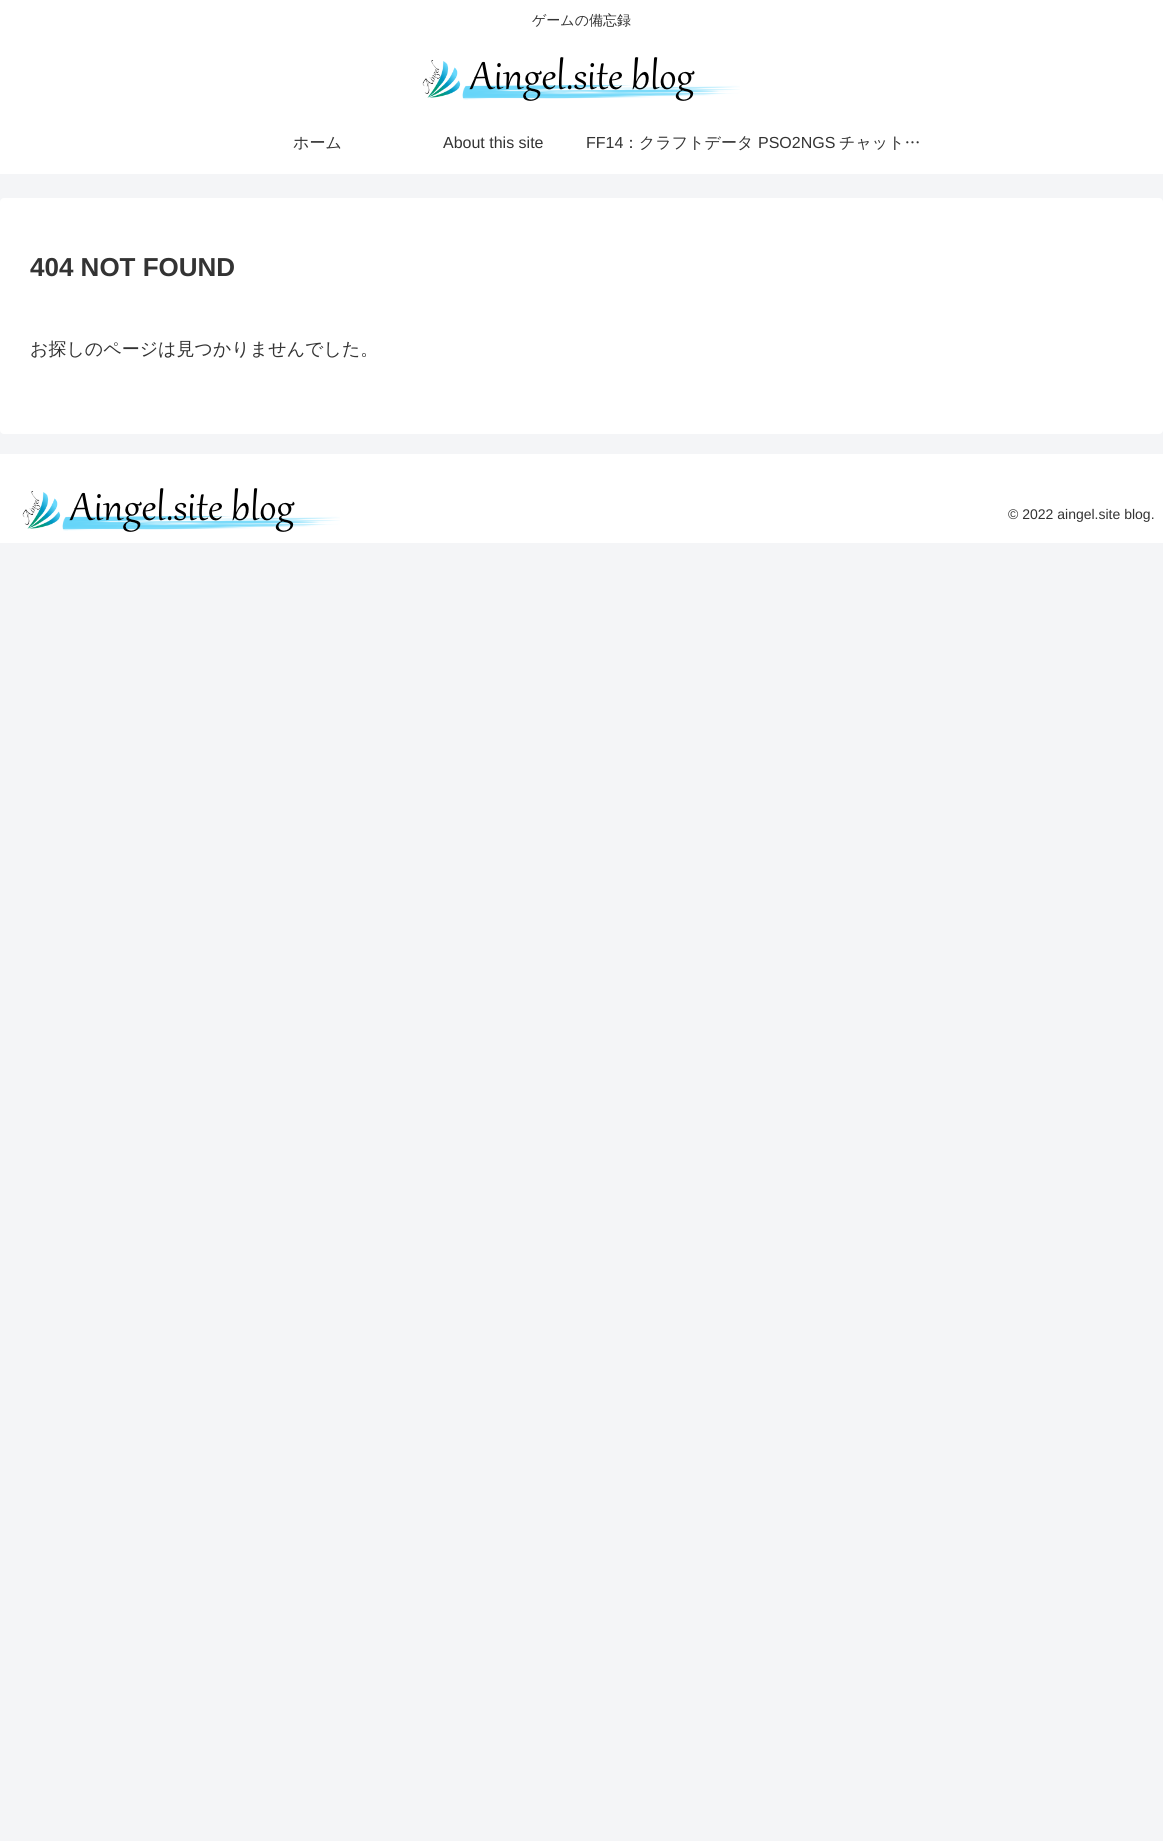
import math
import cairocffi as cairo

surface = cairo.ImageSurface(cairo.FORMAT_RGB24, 1163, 1841)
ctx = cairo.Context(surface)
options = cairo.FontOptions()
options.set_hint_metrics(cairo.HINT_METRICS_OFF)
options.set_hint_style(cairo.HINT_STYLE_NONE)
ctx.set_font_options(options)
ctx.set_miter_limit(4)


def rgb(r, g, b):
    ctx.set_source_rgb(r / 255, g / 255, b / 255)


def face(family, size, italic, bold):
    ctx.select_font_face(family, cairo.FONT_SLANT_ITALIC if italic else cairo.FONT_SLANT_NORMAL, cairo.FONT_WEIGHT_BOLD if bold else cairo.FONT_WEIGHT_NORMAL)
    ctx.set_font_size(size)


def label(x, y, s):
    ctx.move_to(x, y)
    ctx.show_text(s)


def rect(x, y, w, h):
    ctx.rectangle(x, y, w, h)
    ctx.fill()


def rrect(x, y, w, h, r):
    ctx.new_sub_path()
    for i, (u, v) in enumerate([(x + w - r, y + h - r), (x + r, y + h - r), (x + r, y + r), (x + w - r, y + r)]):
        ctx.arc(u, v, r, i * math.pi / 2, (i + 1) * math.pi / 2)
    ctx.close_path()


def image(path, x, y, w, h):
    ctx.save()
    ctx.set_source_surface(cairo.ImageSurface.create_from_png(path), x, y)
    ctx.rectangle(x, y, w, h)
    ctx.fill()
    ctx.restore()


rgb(244, 245, 247)
ctx.paint()
rgb(255, 255, 255)
rect(0, 0, 1163, 174)
face('WenQuanYi Zen Hei Medium', 14, 0, 0)
rgb(51, 51, 51)
label(532, 25, 'ゲームの備忘録')
image('image0.png', 422, 57, 318, 44)
face('WenQuanYi Zen Hei Medium', 16, 0, 0)
label(293, 148, 'ホーム')
face('Liberation Sans', 16, 0, 0)
label(443, 148, 'About this site')
label(586, 148, 'FF14')
face('WenQuanYi Zen Hei Medium', 16, 0, 0)
label(623, 148, '：クラフトデータ')
face('Liberation Sans', 16, 0, 0)
label(758, 148, 'PSO2NGS')
face('WenQuanYi Zen Hei Medium', 16, 0, 0)
label(839, 148, 'チャット…')
rgb(255, 255, 255)
rrect(0, 198, 1163, 236, 4)
ctx.fill()
face('Liberation Sans', 26, 0, 1)
rgb(51, 51, 51)
label(30, 276, '404 NOT FOUND')
face('WenQuanYi Zen Hei Medium', 18, 0, 0)
label(30, 355, 'お探しのページは見つかりませんでした。')
rgb(255, 255, 255)
rect(0, 454, 1163, 89)
image('image0.png', 22, 488, 318, 44)
face('Liberation Sans', 14, 0, 0)
rgb(51, 51, 51)
label(1008, 519, '© 2022 aingel.site blog.')
surface.write_to_png('render.png')
